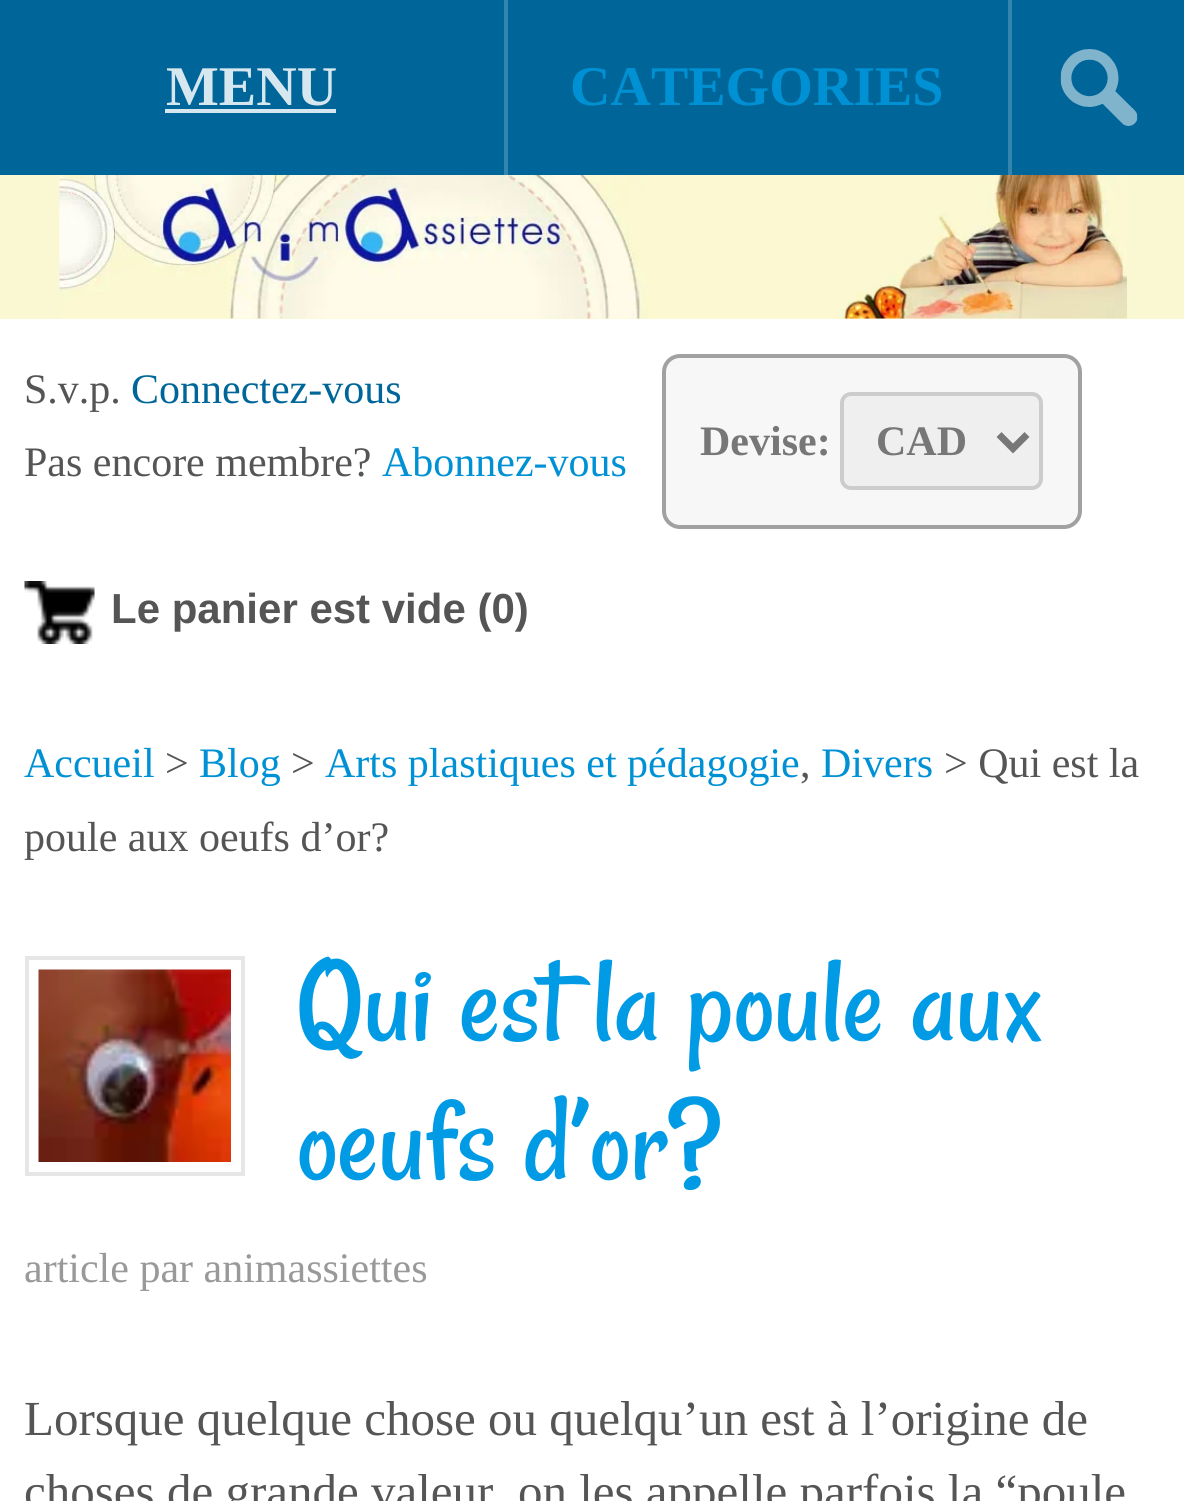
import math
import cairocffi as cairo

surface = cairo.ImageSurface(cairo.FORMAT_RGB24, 1184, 1501)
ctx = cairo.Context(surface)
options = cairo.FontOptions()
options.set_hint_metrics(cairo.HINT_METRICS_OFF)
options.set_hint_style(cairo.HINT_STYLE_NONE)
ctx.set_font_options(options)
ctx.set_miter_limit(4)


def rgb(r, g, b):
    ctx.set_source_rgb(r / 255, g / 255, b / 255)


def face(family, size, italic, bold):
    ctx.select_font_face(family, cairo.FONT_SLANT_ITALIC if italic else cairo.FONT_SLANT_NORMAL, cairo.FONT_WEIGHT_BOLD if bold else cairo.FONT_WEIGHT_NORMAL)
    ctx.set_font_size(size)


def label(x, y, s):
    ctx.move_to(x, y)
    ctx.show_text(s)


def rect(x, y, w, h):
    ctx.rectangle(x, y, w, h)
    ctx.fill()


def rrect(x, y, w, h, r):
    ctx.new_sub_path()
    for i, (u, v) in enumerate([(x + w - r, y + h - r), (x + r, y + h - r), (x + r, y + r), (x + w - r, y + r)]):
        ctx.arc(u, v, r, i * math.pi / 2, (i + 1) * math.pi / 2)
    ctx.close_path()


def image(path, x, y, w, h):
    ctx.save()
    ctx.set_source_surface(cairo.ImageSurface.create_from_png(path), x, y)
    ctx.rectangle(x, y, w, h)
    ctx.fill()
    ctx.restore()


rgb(250, 248, 210)
ctx.paint()
rgb(0, 102, 153)
rect(0, 0, 1184, 175)
rgb(51, 133, 173)
rect(504, 0, 4, 175)
face('Liberation Serif', 56, 0, 1)
rgb(214, 231, 239)
label(166, 105, 'MENU')
rect(165, 109, 171, 4)
rgb(51, 133, 173)
rect(1008, 0, 4, 175)
rgb(0, 145, 212)
label(570, 105, 'CATEGORIES')
image('image0.png', 1060, 49, 78, 77)
image('image1.png', 59, 175, 1068, 144)
rgb(255, 255, 255)
rect(0, 319, 1184, 1182)
face('Liberation Serif', 42, 0, 0)
rgb(85, 85, 85)
label(24, 403, 'S.v.p.')
rgb(0, 102, 153)
label(131, 403, 'Connectez-vous')
rgb(85, 85, 85)
label(24, 476, 'Pas encore membre?')
rgb(0, 145, 212)
label(382, 476, 'Abonnez-vous')
rgb(247, 247, 247)
rrect(664, 356, 416, 171, 16)
ctx.fill_preserve()
rgb(161, 161, 161)
ctx.set_line_width(4)
ctx.stroke()
face('Liberation Serif', 42, 0, 1)
rgb(119, 119, 119)
label(700, 455, 'Devise:')
rgb(239, 239, 239)
rrect(842, 394, 199, 94, 9)
ctx.fill_preserve()
rgb(204, 204, 204)
ctx.stroke()
ctx.new_path()
ctx.move_to(999, 434.5)
ctx.line_to(1013, 448.5)
ctx.line_to(1027, 434.5)
rgb(119, 119, 119)
ctx.set_line_width(7)
ctx.stroke()
label(876, 455, 'CAD')
image('image2.png', 24, 581, 71, 63)
face('Liberation Sans', 42, 0, 1)
rgb(85, 85, 85)
label(111, 623, 'Le panier est vide (0)')
face('Liberation Serif', 42, 0, 0)
rgb(0, 145, 212)
label(24, 777, 'Accueil')
rgb(85, 85, 85)
label(165, 777, '>')
rgb(0, 145, 212)
label(199, 777, 'Blog')
rgb(85, 85, 85)
label(291, 777, '>')
rgb(0, 145, 212)
label(325, 777, 'Arts plastiques et pédagogie')
label(821, 777, 'Divers')
rgb(85, 85, 85)
label(944, 777, '> Qui est la')
label(800, 777, ',')
label(24, 851, 'poule aux oeufs d’or?')
ctx.rectangle(27, 958, 216, 216)
rgb(230, 230, 230)
ctx.set_line_width(4)
ctx.stroke()
image('image3.png', 38, 969, 193, 193)
face('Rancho', 126, 0, 0)
rgb(0, 155, 228)
label(297, 1040, 'Qui est la poule aux')
label(297, 1179, 'oeufs d’or?')
face('Liberation Serif', 42, 0, 0)
rgb(153, 153, 153)
label(24, 1282, 'article par animassiettes')
face('Liberation Serif', 49, 0, 0)
rgb(85, 85, 85)
label(24, 1435, 'Lorsque quelque chose ou quelqu’un est à l’origine de')
label(24, 1508, 'choses de grande valeur, on les appelle parfois la “poule')
surface.write_to_png('render.png')
